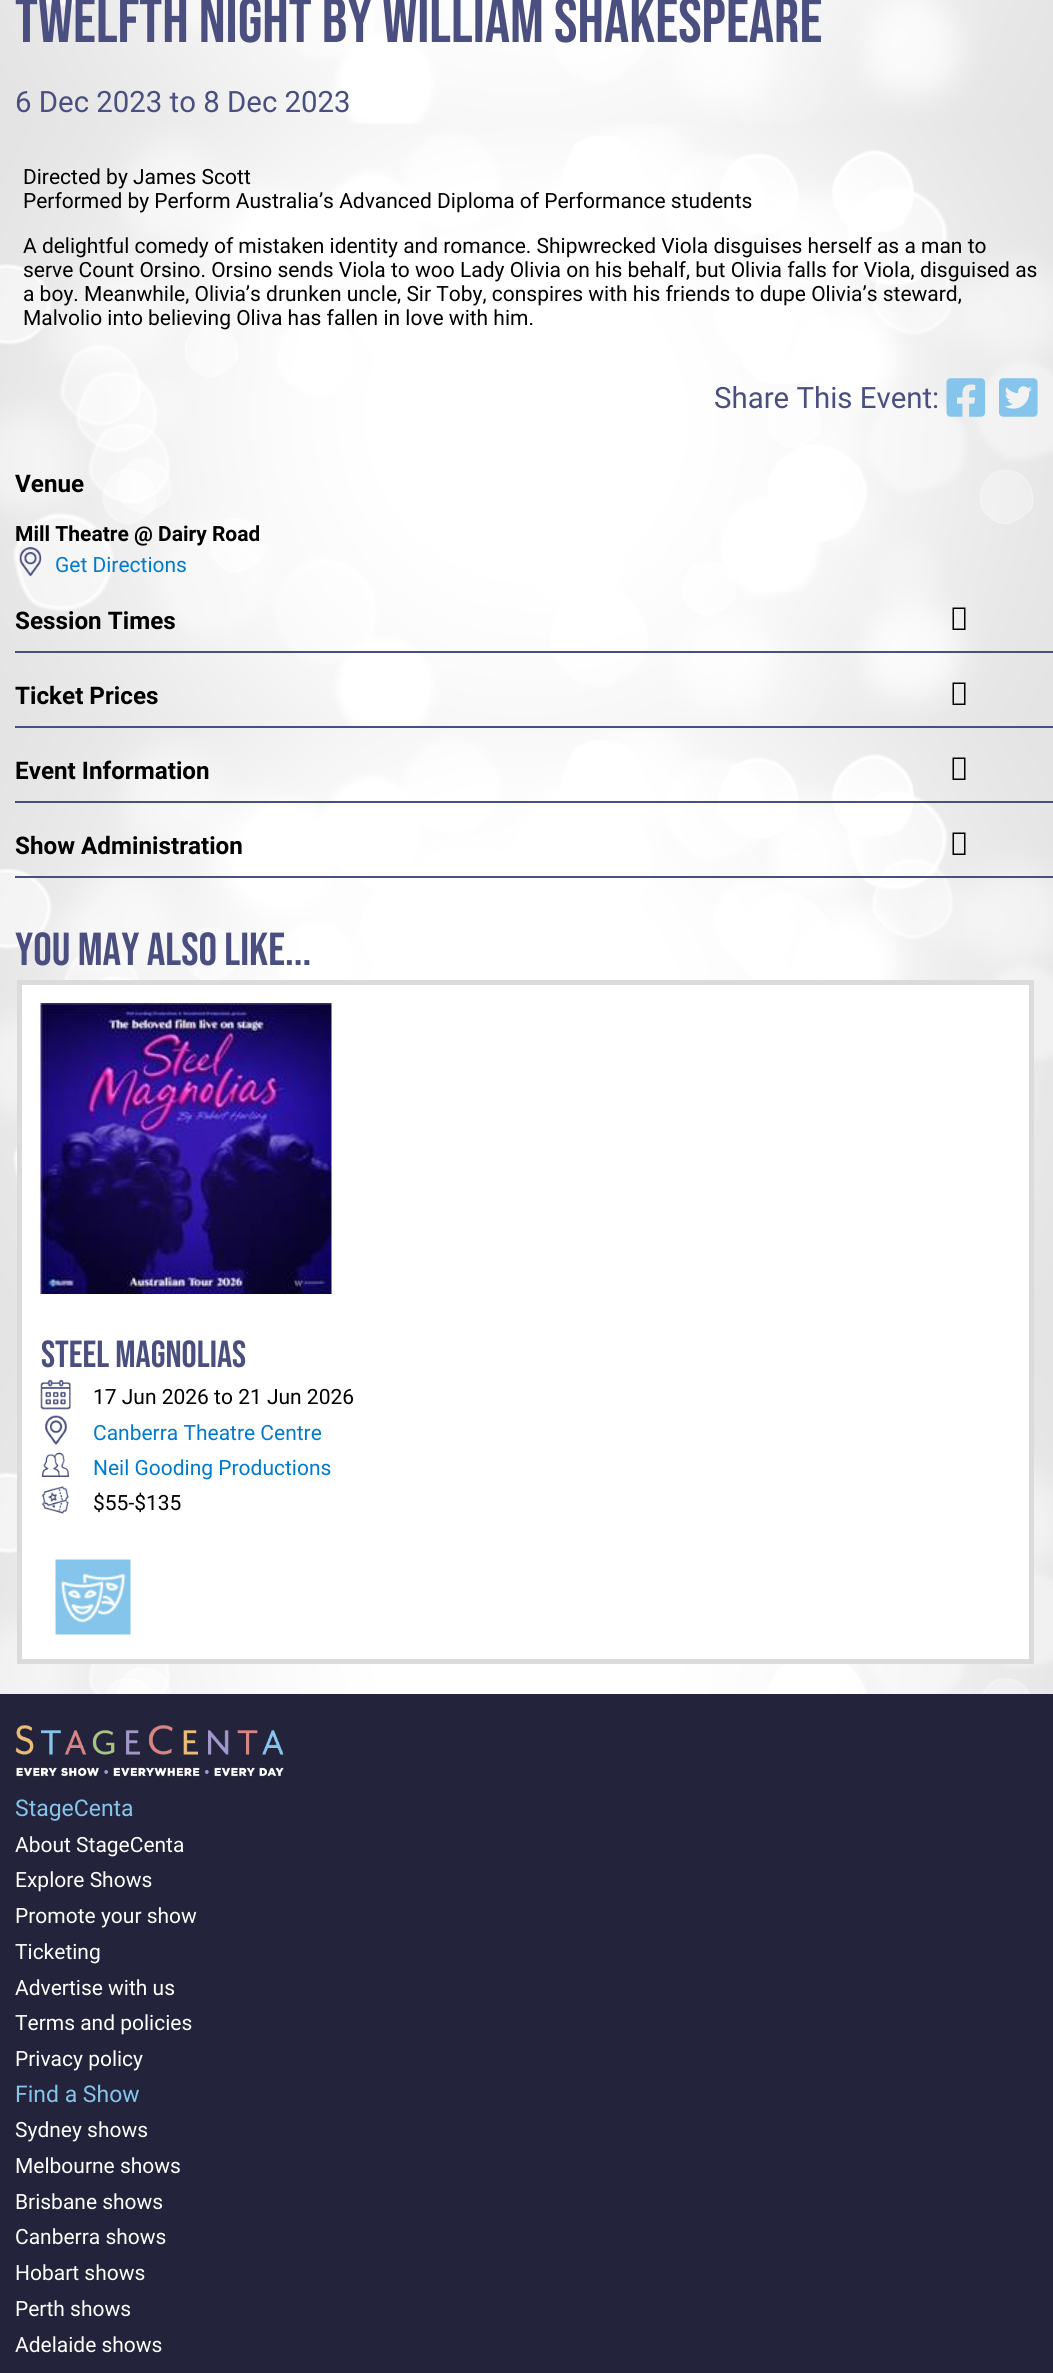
import math
import cairocffi as cairo

surface = cairo.ImageSurface(cairo.FORMAT_RGB24, 1053, 2373)
ctx = cairo.Context(surface)
options = cairo.FontOptions()
options.set_hint_metrics(cairo.HINT_METRICS_OFF)
options.set_hint_style(cairo.HINT_STYLE_NONE)
ctx.set_font_options(options)
ctx.set_miter_limit(4)


def rgb(r, g, b):
    ctx.set_source_rgb(r / 255, g / 255, b / 255)


def face(family, size, italic, bold):
    ctx.select_font_face(family, cairo.FONT_SLANT_ITALIC if italic else cairo.FONT_SLANT_NORMAL, cairo.FONT_WEIGHT_BOLD if bold else cairo.FONT_WEIGHT_NORMAL)
    ctx.set_font_size(size)


def label(x, y, s):
    ctx.move_to(x, y)
    ctx.show_text(s)


def rect(x, y, w, h):
    ctx.rectangle(x, y, w, h)
    ctx.fill()


def image(path, x, y, w, h):
    ctx.save()
    ctx.set_source_surface(cairo.ImageSurface.create_from_png(path), x, y)
    ctx.rectangle(x, y, w, h)
    ctx.fill()
    ctx.restore()


rgb(255, 255, 255)
ctx.paint()
image('image0.png', 0, 0, 1053, 1694)
face('Bebas Neue', 63, 0, 0)
rgb(74, 79, 127)
label(15, 42, 'TWELFTH NIGHT BY WILLIAM SHAKESPEARE')
face('Roboto', 29.4, 0, 0)
label(15, 112, '6 Dec 2023 to 8 Dec 2023')
face('Roboto', 21, 0, 0)
rgb(0, 0, 0)
label(23, 184, 'Directed by James Scott')
label(23, 208, 'Performed by Perform Australia’s Advanced Diploma of Performance students')
label(23, 253, 'A delightful comedy of mistaken identity and romance. Shipwrecked Viola disguises herself as a man to')
label(23, 277, 'serve Count Orsino. Orsino sends Viola to woo Lady Olivia on his behalf, but Olivia falls for Viola, disguised as')
label(23, 301, 'a boy. Meanwhile, Olivia’s drunken uncle, Sir Toby, conspires with his friends to dupe Olivia’s steward,')
label(23, 325, 'Malvolio into believing Oliva has fallen in love with him.')
face('Roboto', 29.4, 0, 0)
rgb(74, 79, 127)
label(714, 408, 'Share This Event:')
image('image1.png', 946, 378, 40, 39)
image('image2.png', 999, 378, 39, 39)
face('Roboto', 24.25, 0, 1)
rgb(0, 0, 0)
label(15, 492, 'Venue')
face('Roboto', 21, 0, 1)
label(15, 541, 'Mill Theatre @ Dairy Road')
image('image3.png', 19, 547, 23, 30)
face('Roboto', 21, 0, 0)
rgb(0, 122, 206)
label(55, 572, 'Get Directions')
rgb(74, 79, 127)
rect(15, 651, 1038, 2)
face('Roboto', 24.25, 0, 1)
rgb(0, 0, 0)
label(15, 629, 'Session Times')
ctx.new_path()
ctx.move_to(952.5, 630)
ctx.line_to(952.5, 607.5)
ctx.line_to(965.5, 607.5)
ctx.line_to(965.5, 630)
ctx.close_path()
ctx.move_to(954, 628.5)
ctx.line_to(964, 628.5)
ctx.line_to(964, 609)
ctx.line_to(954, 609)
ctx.close_path()
ctx.fill()
rgb(74, 79, 127)
rect(15, 726, 1038, 2)
rgb(0, 0, 0)
label(15, 704, 'Ticket Prices')
ctx.new_path()
ctx.move_to(952.5, 705)
ctx.line_to(952.5, 682.5)
ctx.line_to(965.5, 682.5)
ctx.line_to(965.5, 705)
ctx.close_path()
ctx.move_to(954, 703.5)
ctx.line_to(964, 703.5)
ctx.line_to(964, 684)
ctx.line_to(954, 684)
ctx.close_path()
ctx.fill()
rgb(74, 79, 127)
rect(15, 801, 1038, 2)
rgb(0, 0, 0)
label(15, 779, 'Event Information')
ctx.new_path()
ctx.move_to(952.5, 780)
ctx.line_to(952.5, 757.5)
ctx.line_to(965.5, 757.5)
ctx.line_to(965.5, 780)
ctx.close_path()
ctx.move_to(954, 778.5)
ctx.line_to(964, 778.5)
ctx.line_to(964, 759)
ctx.line_to(954, 759)
ctx.close_path()
ctx.fill()
rgb(74, 79, 127)
rect(15, 876, 1038, 2)
rgb(0, 0, 0)
label(15, 854, 'Show Administration')
ctx.new_path()
ctx.move_to(952.5, 855)
ctx.line_to(952.5, 832.5)
ctx.line_to(965.5, 832.5)
ctx.line_to(965.5, 855)
ctx.close_path()
ctx.move_to(954, 853.5)
ctx.line_to(964, 853.5)
ctx.line_to(964, 834)
ctx.line_to(954, 834)
ctx.close_path()
ctx.fill()
face('Bebas Neue', 46.25, 0, 0)
rgb(74, 79, 127)
label(15, 965, 'YOU MAY ALSO LIKE...')
rgb(255, 255, 255)
ctx.rectangle(19.5, 982.5, 1012, 679)
ctx.fill_preserve()
rgb(218, 219, 219)
ctx.set_line_width(5)
ctx.stroke()
image('image4.png', 40, 1003, 292, 291)
face('Bebas Neue', 37.75, 0, 0)
rgb(74, 79, 127)
label(41, 1367, 'STEEL MAGNOLIAS')
image('image5.png', 40, 1379, 31, 31)
face('Roboto', 21, 0, 0)
rgb(0, 0, 0)
label(93, 1404, '17 Jun 2026 to 21 Jun 2026')
image('image6.png', 45, 1415, 23, 30)
rgb(0, 122, 206)
label(93, 1440, 'Canberra Theatre Centre')
image('image7.png', 41, 1452, 28, 25)
label(93, 1475, 'Neil Gooding Productions')
image('image8.png', 42, 1486, 27, 28)
rgb(0, 0, 0)
label(93, 1510, '$55-$135')
image('image9.png', 55, 1559, 76, 76)
rgb(35, 36, 59)
rect(0, 1694, 1053, 679)
image('image10.png', 15, 1725, 269, 52)
face('Roboto', 23, 0, 0)
rgb(133, 197, 235)
label(15, 1816, 'StageCenta')
face('Roboto', 21, 0, 0)
rgb(255, 255, 255)
label(15, 1852, 'About StageCenta')
label(15, 1887, 'Explore Shows')
label(15, 1923, 'Promote your show')
label(15, 1959, 'Ticketing')
label(15, 1995, 'Advertise with us')
label(15, 2030, 'Terms and policies')
label(15, 2066, 'Privacy policy')
face('Roboto', 23, 0, 0)
rgb(133, 197, 235)
label(15, 2102, 'Find a Show')
face('Roboto', 21, 0, 0)
rgb(255, 255, 255)
label(15, 2137, 'Sydney shows')
label(15, 2173, 'Melbourne shows')
label(15, 2209, 'Brisbane shows')
label(15, 2244, 'Canberra shows')
label(15, 2280, 'Hobart shows')
label(15, 2316, 'Perth shows')
label(15, 2352, 'Adelaide shows')
surface.write_to_png('render.png')
